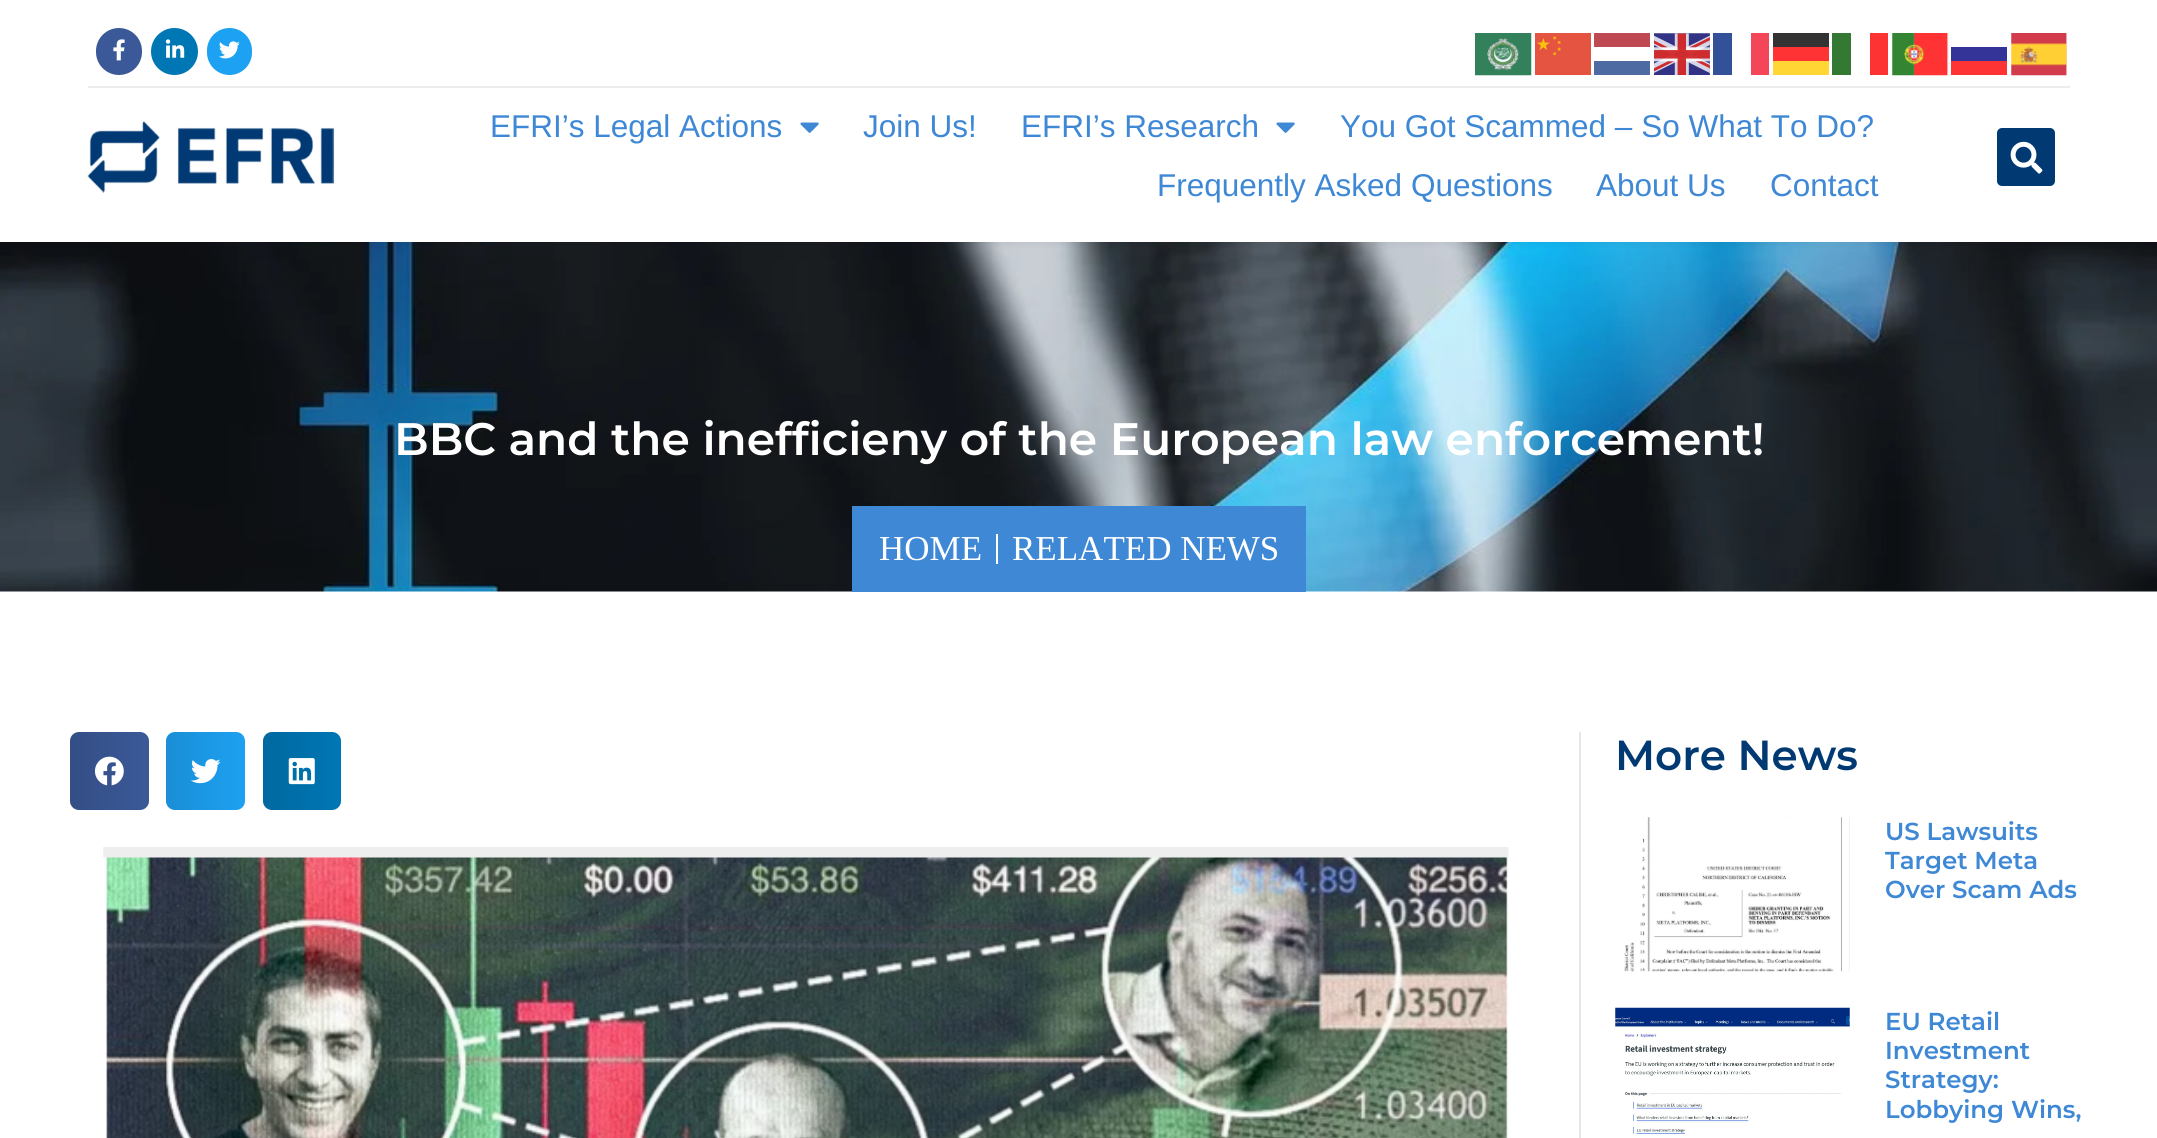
import math
import cairocffi as cairo

surface = cairo.ImageSurface(cairo.FORMAT_RGB24, 2157, 1138)
ctx = cairo.Context(surface)
options = cairo.FontOptions()
options.set_hint_metrics(cairo.HINT_METRICS_OFF)
options.set_hint_style(cairo.HINT_STYLE_NONE)
ctx.set_font_options(options)
ctx.set_miter_limit(4)


def rgb(r, g, b):
    ctx.set_source_rgb(r / 255, g / 255, b / 255)


def face(family, size, italic, bold):
    ctx.select_font_face(family, cairo.FONT_SLANT_ITALIC if italic else cairo.FONT_SLANT_NORMAL, cairo.FONT_WEIGHT_BOLD if bold else cairo.FONT_WEIGHT_NORMAL)
    ctx.set_font_size(size)


def label(x, y, s):
    ctx.move_to(x, y)
    ctx.show_text(s)


def rect(x, y, w, h):
    ctx.rectangle(x, y, w, h)
    ctx.fill()


def rrect(x, y, w, h, r):
    ctx.new_sub_path()
    for i, (u, v) in enumerate([(x + w - r, y + h - r), (x + r, y + h - r), (x + r, y + r), (x + w - r, y + r)]):
        ctx.arc(u, v, r, i * math.pi / 2, (i + 1) * math.pi / 2)
    ctx.close_path()


def soft_shadow(x, y, w, h, r, blur, alpha):
    ctx.push_group_with_content(cairo.CONTENT_ALPHA)
    ctx.set_operator(cairo.OPERATOR_SOURCE)
    for i in range(15, -16, -2):
        e = blur * i / 6
        if min(w, h) + 2 * e > 0:
            ctx.set_source_rgba(0, 0, 0, alpha * math.erfc((i - 1) / 8.5) / 2)
            rrect(x - e, y - e, w + 2 * e, h + 2 * e, max(0, min(r + e + blur * .6, min(w, h) / 2 + e)))
            ctx.fill()
    ctx.mask(ctx.pop_group())


def image(path, x, y, w, h):
    ctx.save()
    ctx.set_source_surface(cairo.ImageSurface.create_from_png(path), x, y)
    ctx.rectangle(x, y, w, h)
    ctx.fill()
    ctx.restore()


rgb(255, 255, 255)
ctx.paint()
image('image11.png', 0, 242, 2157, 350)
rgb(0, 0, 0)
soft_shadow(0, 0, 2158, 242, 0, 4.5, 0.08)
rgb(255, 255, 255)
rect(0, 0, 2157, 242)
rgb(237, 237, 237)
rect(88, 86, 1982, 2)
rgb(59, 89, 152)
rrect(96, 28, 46, 47, 23)
ctx.fill()
image('image0.png', 113, 39, 12, 22)
rgb(0, 119, 181)
ctx.arc(174.5, 51.5, 23.5, 0, 2 * math.pi)
ctx.fill()
image('image1.png', 165, 39, 20, 19)
rgb(29, 161, 242)
rrect(207, 28, 45, 47, 22.5)
ctx.fill()
image('image2.png', 219, 41, 21, 18)
image('image3.png', 1475, 33, 57, 43)
image('image4.png', 1535, 33, 56, 42)
rgb(190, 73, 83)
rect(1594, 33, 56, 14)
image('image5.png', 1654, 33, 56, 42)
rgb(51, 81, 153)
rect(1713, 33, 19, 42)
rgb(245, 70, 89)
rect(1751, 33, 18, 42)
rgb(51, 51, 51)
rect(1773, 33, 56, 14)
rgb(51, 121, 51)
rect(1832, 33, 19, 42)
rgb(253, 51, 51)
rect(1870, 33, 18, 42)
image('image6.png', 1892, 33, 57, 43)
image('image7.png', 2011, 33, 56, 43)
rgb(255, 51, 51)
rect(1773, 47, 56, 14)
rgb(52, 52, 152)
rect(1951, 47, 56, 14)
rgb(77, 107, 162)
rect(1594, 61, 56, 14)
rgb(255, 214, 51)
rect(1773, 61, 56, 14)
rgb(254, 52, 52)
rect(1951, 61, 56, 14)
image('image8.png', 87, 121, 248, 73)
face('Liberation Sans', 31.5, 0, 0)
rgb(62, 136, 214)
label(490, 137, 'EFRI’s Legal Actions')
image('image9.png', 800, 122, 19, 11)
label(863, 137, 'Join Us!')
label(1021, 137, 'EFRI’s Research')
image('image9.png', 1276, 122, 19, 11)
label(1340, 137, 'You Got Scammed – So What To Do?')
label(1157, 196, 'Frequently Asked Questions')
label(1596, 196, 'About Us')
label(1770, 196, 'Contact')
rgb(1, 57, 115)
rrect(1997, 128, 58, 58, 5)
ctx.fill()
image('image10.png', 2010, 141, 33, 33)
face('Montserrat SemiBold', 45.5, 0, 0)
rgb(255, 255, 255)
label(394, 455, 'BBC and the inefficieny of the European law enforcement!')
rgb(62, 136, 214)
rect(852, 506, 454, 86)
face('Liberation Serif', 35, 0, 0)
rgb(255, 255, 255)
label(879, 560, 'HOME')
rect(996, 534, 2, 30)
label(1012, 560, 'RELATED NEWS')
rgb(230, 230, 230)
rect(1579, 732, 2, 406)
rgb(59, 89, 152)
rrect(70, 732, 79, 78, 9)
ctx.fill()
gradient = cairo.LinearGradient(70, 771, 149, 771)
gradient.add_color_stop_rgba(0, 0, 0, 0, 0.12)
gradient.add_color_stop_rgba(1, 0, 0, 0, 0)
ctx.set_source(gradient)
rrect(70, 732, 79, 78, 9)
ctx.fill()
image('image12.png', 95, 756, 29, 30)
rgb(29, 161, 242)
rrect(166, 732, 79, 78, 9)
ctx.fill()
gradient = cairo.LinearGradient(166, 771, 245, 771)
gradient.add_color_stop_rgba(0, 0, 0, 0, 0.12)
gradient.add_color_stop_rgba(1, 0, 0, 0, 0)
ctx.set_source(gradient)
rrect(166, 732, 79, 78, 9)
ctx.fill()
image('image13.png', 191, 759, 30, 25)
rgb(0, 119, 181)
rrect(263, 732, 78, 78, 9)
ctx.fill()
gradient = cairo.LinearGradient(263, 771, 341, 771)
gradient.add_color_stop_rgba(0, 0, 0, 0, 0.12)
gradient.add_color_stop_rgba(1, 0, 0, 0, 0)
ctx.set_source(gradient)
rrect(263, 732, 78, 78, 9)
ctx.fill()
image('image14.png', 288, 758, 27, 27)
image('image15.png', 103, 847, 1406, 291)
face('Montserrat SemiBold', 42, 0, 0)
rgb(1, 57, 115)
label(1615, 770, 'More News')
image('image16.png', 1624, 817, 226, 155)
face('Montserrat SemiBold', 24.5, 0, 0)
rgb(62, 136, 214)
label(1885, 840, 'US Lawsuits')
label(1885, 869, 'Target Meta')
label(1885, 898, 'Over Scam Ads')
image('image17.png', 1615, 1007, 235, 127)
label(1885, 1030, 'EU Retail')
label(1885, 1059, 'Investment')
label(1885, 1088, 'Strategy:')
label(1885, 1118, 'Lobbying Wins,')
surface.write_to_png('render.png')
